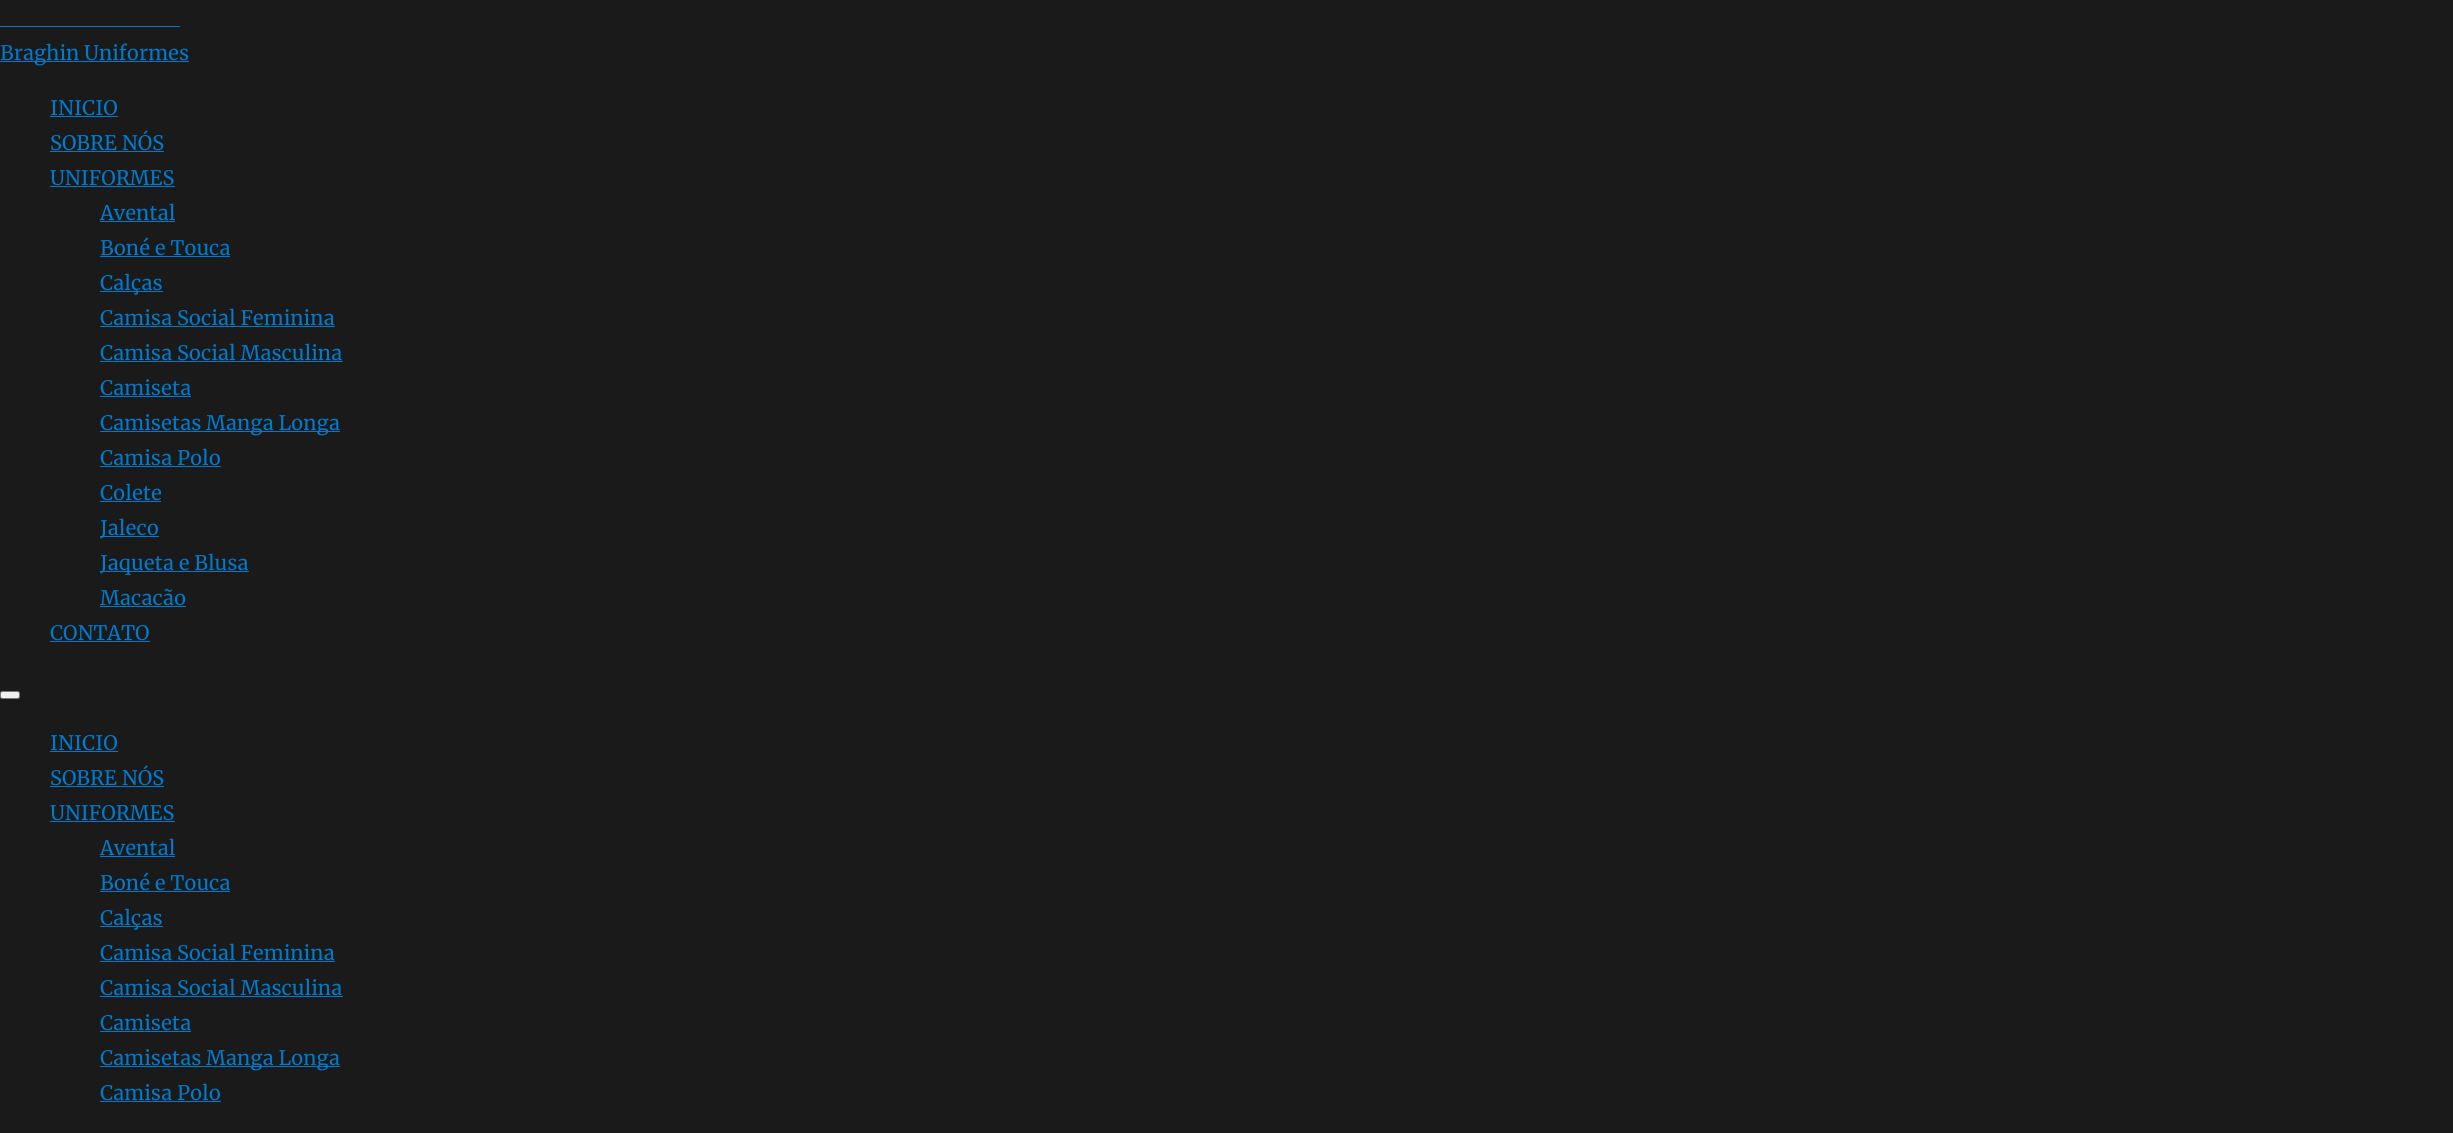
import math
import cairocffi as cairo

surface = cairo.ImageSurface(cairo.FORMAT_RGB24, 2453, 1133)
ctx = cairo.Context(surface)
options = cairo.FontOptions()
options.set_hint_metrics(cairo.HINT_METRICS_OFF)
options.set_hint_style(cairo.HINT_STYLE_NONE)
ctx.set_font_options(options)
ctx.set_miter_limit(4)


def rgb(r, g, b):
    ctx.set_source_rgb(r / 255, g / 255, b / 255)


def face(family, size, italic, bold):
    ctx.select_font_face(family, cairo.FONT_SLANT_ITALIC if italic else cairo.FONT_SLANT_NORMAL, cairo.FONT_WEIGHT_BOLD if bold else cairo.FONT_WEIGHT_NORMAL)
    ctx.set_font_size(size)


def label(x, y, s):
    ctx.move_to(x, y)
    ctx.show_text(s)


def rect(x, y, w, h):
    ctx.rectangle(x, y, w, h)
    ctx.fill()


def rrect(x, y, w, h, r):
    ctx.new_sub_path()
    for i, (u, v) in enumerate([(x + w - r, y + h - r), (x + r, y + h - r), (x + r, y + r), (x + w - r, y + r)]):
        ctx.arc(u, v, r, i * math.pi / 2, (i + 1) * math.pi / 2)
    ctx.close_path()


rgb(26, 26, 26)
ctx.paint()
rgb(0, 122, 204)
rect(0, 26, 180, 1)
rect(0, 61, 189, 1)
face('Merriweather', 20, 0, 0)
label(0, 60, 'Braghin Uniformes')
label(50, 115, 'INICIO')
rect(50, 116, 68, 1)
label(50, 150, 'SOBRE NÓS')
rect(50, 151, 114, 1)
label(50, 185, 'UNIFORMES')
rect(50, 186, 125, 1)
label(100, 220, 'Avental')
rect(100, 221, 75, 1)
label(100, 255, 'Boné e Touca')
rect(100, 256, 130, 1)
rect(100, 291, 63, 1)
label(100, 290, 'Calças')
label(100, 325, 'Camisa Social Feminina')
rect(100, 326, 235, 1)
label(100, 360, 'Camisa Social Masculina')
rect(100, 361, 243, 1)
label(100, 395, 'Camiseta')
rect(100, 396, 91, 1)
rect(100, 431, 240, 1)
label(100, 430, 'Camisetas Manga Longa')
label(100, 465, 'Camisa Polo')
rect(100, 466, 121, 1)
label(100, 500, 'Colete')
rect(100, 501, 61, 1)
rect(100, 536, 59, 1)
label(100, 535, 'Jaleco')
rect(100, 571, 149, 1)
label(100, 570, 'Jaqueta e Blusa')
label(100, 605, 'Macacão')
rect(100, 606, 86, 1)
label(50, 640, 'CONTATO')
rect(50, 641, 100, 1)
rgb(239, 239, 239)
rrect(0.5, 691.5, 19, 7, 2)
ctx.fill_preserve()
rgb(118, 118, 118)
ctx.set_line_width(1)
ctx.stroke()
rgb(0, 122, 204)
label(50, 750, 'INICIO')
rect(50, 751, 68, 1)
label(50, 785, 'SOBRE NÓS')
rect(50, 786, 114, 1)
label(50, 820, 'UNIFORMES')
rect(50, 821, 125, 1)
label(100, 855, 'Avental')
rect(100, 856, 75, 1)
label(100, 890, 'Boné e Touca')
rect(100, 891, 130, 1)
rect(100, 926, 63, 1)
label(100, 925, 'Calças')
label(100, 960, 'Camisa Social Feminina')
rect(100, 961, 235, 1)
label(100, 995, 'Camisa Social Masculina')
rect(100, 996, 243, 1)
label(100, 1030, 'Camiseta')
rect(100, 1031, 91, 1)
rect(100, 1066, 240, 1)
label(100, 1065, 'Camisetas Manga Longa')
label(100, 1100, 'Camisa Polo')
rect(100, 1101, 121, 1)
surface.write_to_png('render.png')
